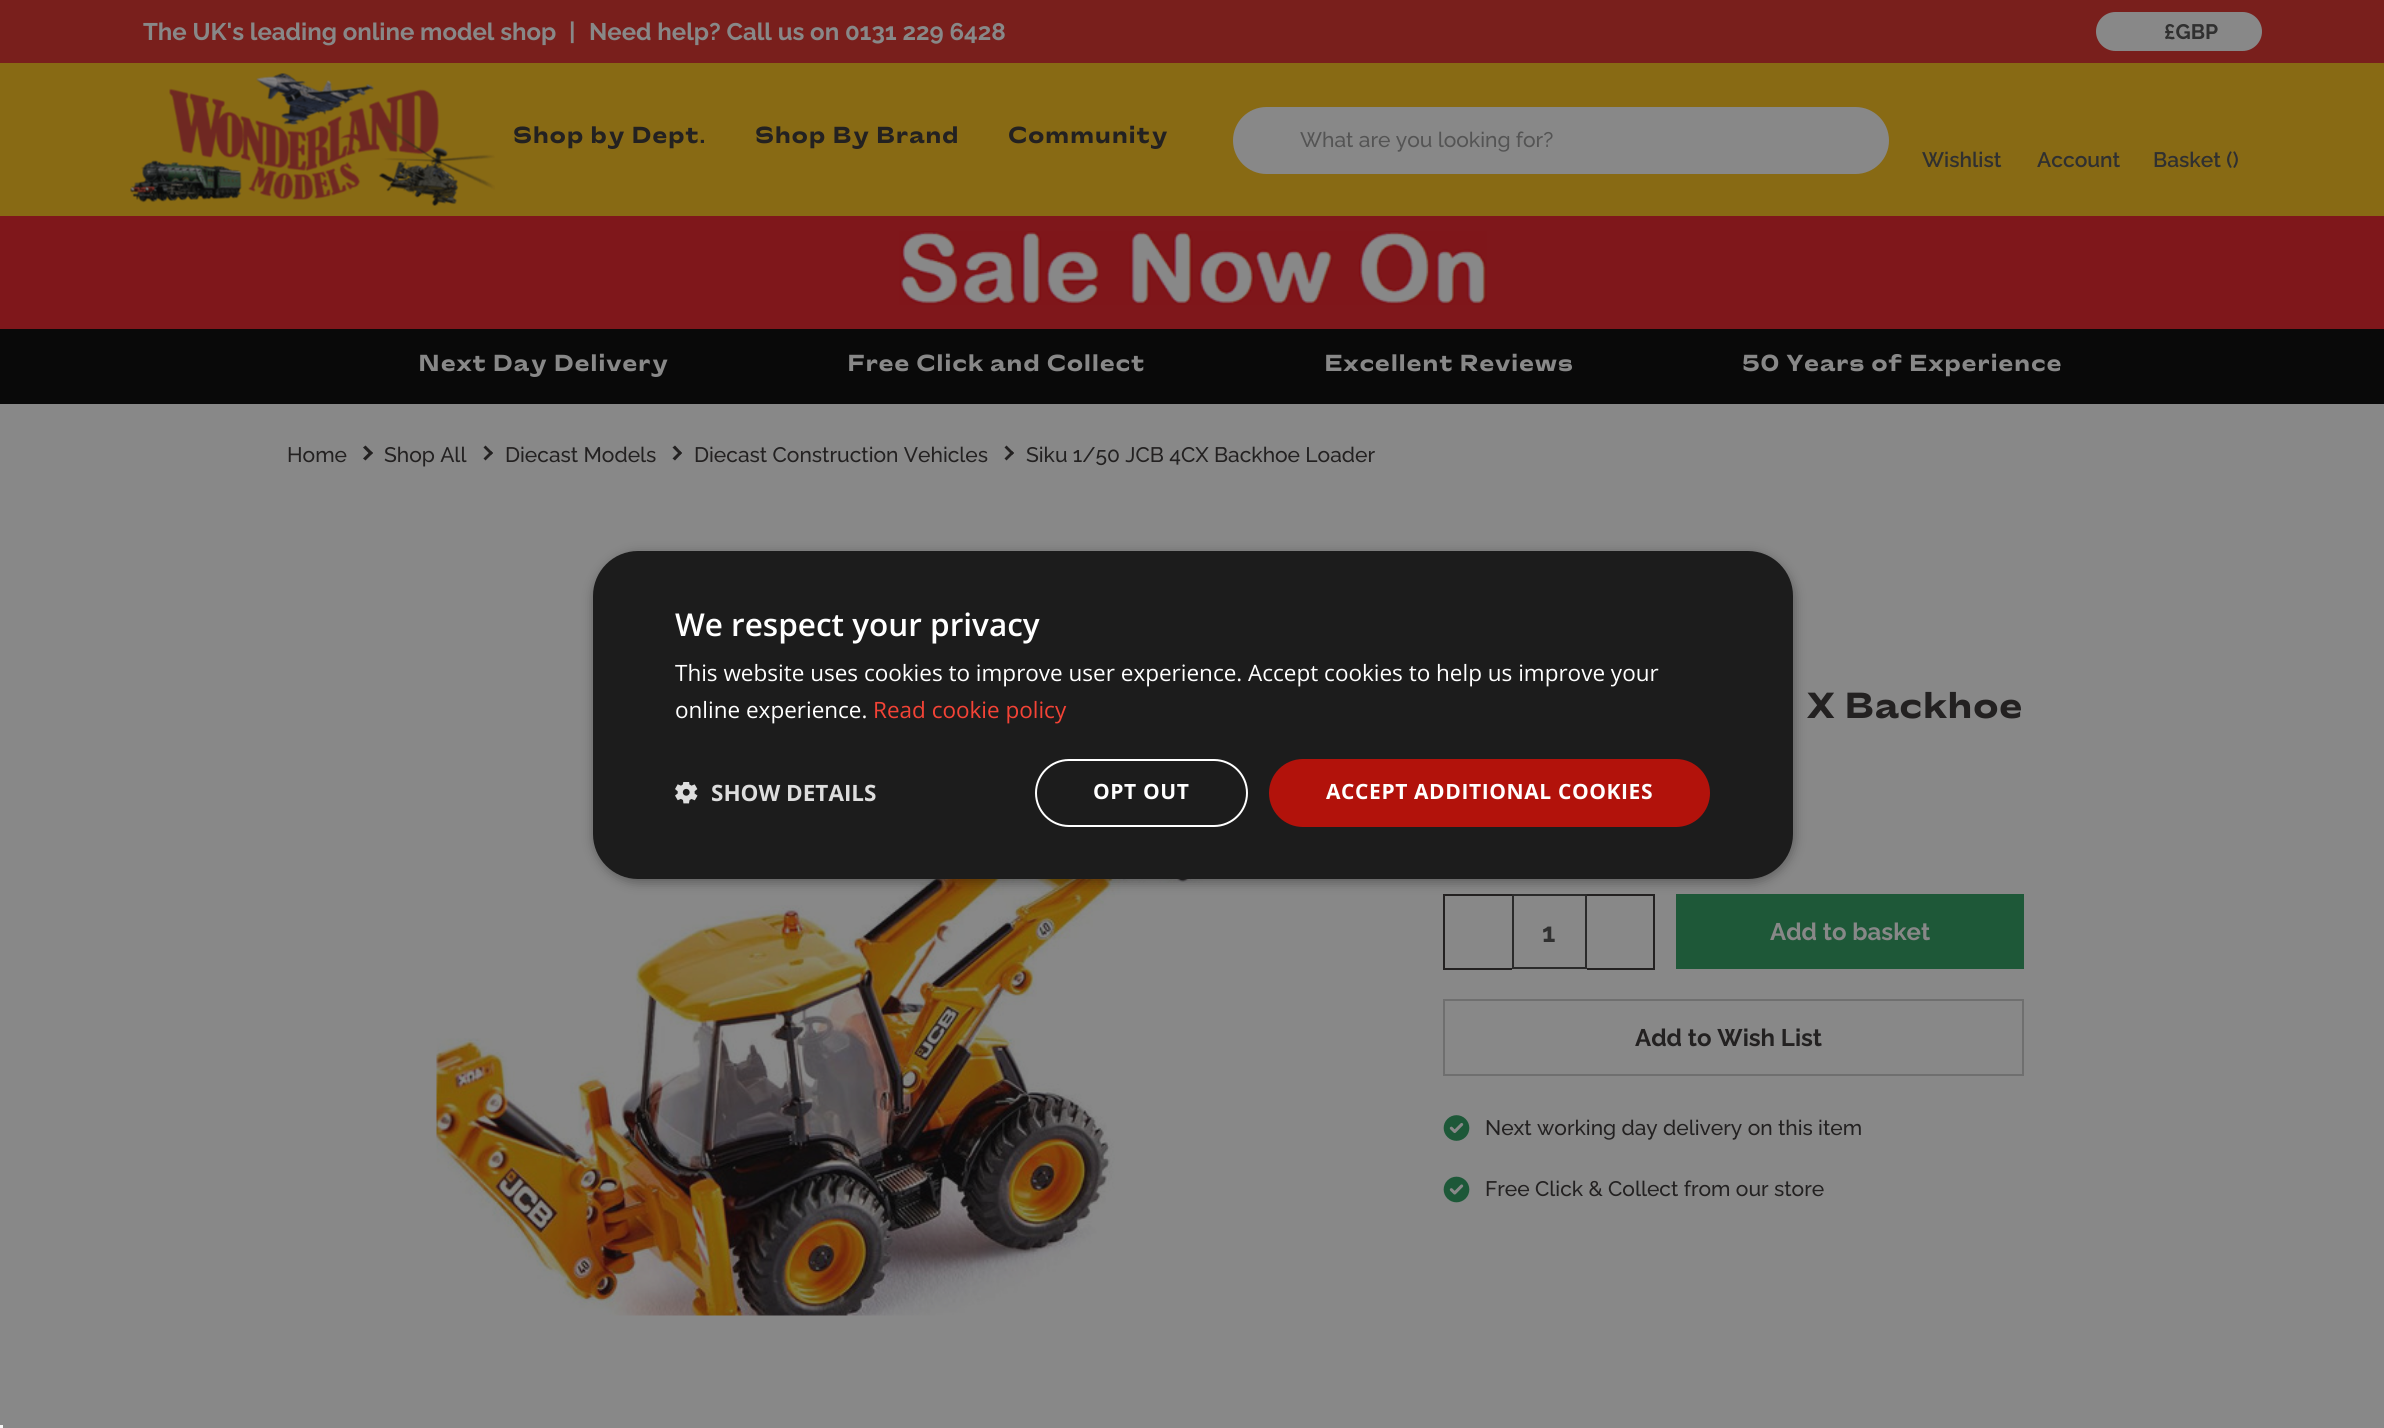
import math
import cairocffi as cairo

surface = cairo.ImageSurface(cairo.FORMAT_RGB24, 2384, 1428)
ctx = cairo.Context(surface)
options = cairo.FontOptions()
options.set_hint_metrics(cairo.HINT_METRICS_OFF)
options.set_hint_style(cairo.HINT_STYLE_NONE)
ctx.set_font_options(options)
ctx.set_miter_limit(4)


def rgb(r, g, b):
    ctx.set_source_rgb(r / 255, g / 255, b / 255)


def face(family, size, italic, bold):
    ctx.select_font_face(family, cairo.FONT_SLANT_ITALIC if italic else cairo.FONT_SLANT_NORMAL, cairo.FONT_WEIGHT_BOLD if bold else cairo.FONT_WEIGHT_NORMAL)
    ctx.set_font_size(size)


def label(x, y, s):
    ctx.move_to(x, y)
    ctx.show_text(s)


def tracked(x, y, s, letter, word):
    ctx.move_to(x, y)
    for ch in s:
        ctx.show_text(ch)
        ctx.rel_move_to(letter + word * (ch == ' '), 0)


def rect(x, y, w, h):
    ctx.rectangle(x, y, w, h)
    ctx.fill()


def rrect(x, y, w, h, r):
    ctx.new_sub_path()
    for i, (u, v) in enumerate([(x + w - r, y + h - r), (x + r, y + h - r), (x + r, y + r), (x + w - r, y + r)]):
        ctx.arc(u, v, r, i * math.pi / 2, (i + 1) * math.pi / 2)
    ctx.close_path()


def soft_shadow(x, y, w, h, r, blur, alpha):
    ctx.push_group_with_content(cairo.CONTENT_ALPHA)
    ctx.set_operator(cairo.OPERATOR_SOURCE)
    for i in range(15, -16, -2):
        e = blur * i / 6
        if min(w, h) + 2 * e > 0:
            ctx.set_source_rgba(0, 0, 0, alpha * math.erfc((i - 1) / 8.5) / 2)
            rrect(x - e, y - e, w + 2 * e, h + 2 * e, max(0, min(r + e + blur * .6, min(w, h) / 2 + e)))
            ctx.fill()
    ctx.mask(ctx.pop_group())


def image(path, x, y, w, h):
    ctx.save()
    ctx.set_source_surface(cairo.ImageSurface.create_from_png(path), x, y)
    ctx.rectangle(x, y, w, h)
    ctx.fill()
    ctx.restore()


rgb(136, 136, 136)
ctx.paint()
rgb(136, 106, 20)
rect(0, 63, 2384, 153)
rgb(121, 31, 28)
rect(0, 0, 2384, 63)
face('Raleway', 24, 0, 1)
rgb(136, 136, 136)
label(143, 40, 'The UK\'s leading online model shop')
label(569, 40, '|')
label(589, 40, 'Need help? Call us on 0131 229 6428')
rrect(2096, 12, 166, 39, 19.5)
ctx.fill()
face('Raleway', 21, 0, 1)
rgb(48, 48, 48)
label(2164, 39, '£GBP')
image('image0.png', 130, 73, 365, 133)
face('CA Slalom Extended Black', 24, 0, 0)
rgb(35, 33, 33)
tracked(513, 143, 'Shop by Dept.', 0.7, 0)
tracked(755, 143, 'Shop By Brand', 0.7, 0)
tracked(1008, 143, 'Community', 0.7, 0)
rgb(136, 136, 136)
rrect(1233, 107, 656, 67, 33.5)
ctx.fill()
face('Raleway Medium', 21, 0, 0)
rgb(84, 84, 84)
label(1300, 147, 'What are you looking for?')
face('Raleway SemiBold', 21, 0, 0)
rgb(48, 48, 48)
label(1922, 167, 'Wishlist')
label(2037, 167, 'Account')
label(2153, 167, 'Basket ()')
rgb(127, 23, 27)
rect(0, 216, 2384, 113)
image('image1.png', 899, 231, 588, 74)
rgb(9, 9, 9)
rect(0, 329, 2384, 75)
face('CA Slalom Extended Black', 24, 0, 0)
rgb(136, 136, 136)
tracked(418, 371, 'Next Day Delivery', 0.7, 0)
tracked(847, 371, 'Free Click and Collect', 0.7, 0)
tracked(1324, 371, 'Excellent Reviews', 0.7, 0)
tracked(1742, 371, '50 Years of Experience', 0.7, 0)
face('Raleway Medium', 21, 0, 0)
rgb(35, 33, 33)
label(287, 462, 'Home')
ctx.new_path()
ctx.move_to(365.5, 445.5)
ctx.line_to(373, 453)
ctx.line_to(370.5, 455)
ctx.line_to(363, 447.5)
ctx.close_path()
ctx.fill()
ctx.new_path()
ctx.move_to(370.5, 451)
ctx.line_to(373, 453)
ctx.line_to(365.5, 460.5)
ctx.line_to(363, 458.5)
ctx.close_path()
ctx.fill()
label(384, 462, 'Shop All')
ctx.new_path()
ctx.move_to(485.5, 445.5)
ctx.line_to(493, 453)
ctx.line_to(491, 455)
ctx.line_to(483.5, 447.5)
ctx.close_path()
ctx.fill()
ctx.new_path()
ctx.move_to(491, 451)
ctx.line_to(493, 453)
ctx.line_to(485.5, 460.5)
ctx.line_to(483.5, 458.5)
ctx.close_path()
ctx.fill()
label(505, 462, 'Diecast Models')
ctx.new_path()
ctx.move_to(675, 445.5)
ctx.line_to(682, 453)
ctx.line_to(680, 455)
ctx.line_to(672.5, 447.5)
ctx.close_path()
ctx.fill()
ctx.new_path()
ctx.move_to(680, 451)
ctx.line_to(682, 453)
ctx.line_to(675, 460.5)
ctx.line_to(672.5, 458.5)
ctx.close_path()
ctx.fill()
label(694, 462, 'Diecast Construction Vehicles')
ctx.new_path()
ctx.move_to(1006.5, 445.5)
ctx.line_to(1014, 453)
ctx.line_to(1012, 455)
ctx.line_to(1004.5, 447.5)
ctx.close_path()
ctx.fill()
ctx.new_path()
ctx.move_to(1012, 451)
ctx.line_to(1014, 453)
ctx.line_to(1006.5, 460.5)
ctx.line_to(1004.5, 458.5)
ctx.close_path()
ctx.fill()
label(1026, 462, 'Siku 1/50 JCB 4CX Backhoe Loader')
image('image2.png', 436, 783, 812, 533)
face('CA Slalom Extended Black', 37.5, 0, 0)
tracked(1807, 718, 'X Backhoe', 0.4, 0)
rect(1443, 894, 69, 2)
rect(1443, 968, 69, 2)
rect(1443, 894, 2, 75)
ctx.rectangle(1513, 895, 73, 73)
rgb(42, 42, 42)
ctx.stroke()
face('Raleway', 27, 0, 1)
rgb(48, 48, 48)
label(1542, 942, '1')
rgb(35, 33, 33)
rect(1587, 894, 68, 2)
rect(1653, 894, 2, 75)
rect(1587, 968, 68, 2)
rgb(30, 88, 56)
rect(1676, 894, 348, 75)
face('Raleway', 24, 0, 1)
rgb(136, 136, 136)
label(1770, 940, 'Add to basket')
ctx.rectangle(1444, 1000, 579, 75)
rgb(111, 111, 111)
ctx.stroke()
rgb(35, 33, 33)
label(1635, 1046, 'Add to Wish List')
image('image3.png', 1443, 1115, 27, 26)
face('Raleway Medium', 21, 0, 0)
label(1485, 1135, 'Next working day delivery on this item')
image('image4.png', 1443, 1176, 27, 27)
label(1485, 1196, 'Free Click & Collect from our store')
rgb(0, 0, 0)
soft_shadow(594, 554, 1200, 328, 45, 6, 0.35)
rgb(28, 28, 28)
rrect(593, 551, 1200, 328, 45)
ctx.fill()
face('Open Sans SemiBold', 31.5, 0, 0)
rgb(255, 255, 255)
label(675, 636, 'We respect your privacy')
face('Open Sans', 22.5, 0, 0)
label(675, 681, 'This website uses cookies to improve user experience. Accept cookies to help us improve your')
label(675, 718, 'online experience.')
rgb(244, 67, 54)
label(873, 718, 'Read cookie policy')
image('image5.png', 675, 782, 23, 22)
face('Open Sans', 22.5, 0, 1)
rgb(221, 221, 221)
label(711, 801, 'SHOW DETAILS')
rrect(1036, 760, 211, 66, 33)
rgb(255, 255, 255)
ctx.stroke()
face('Open Sans', 21, 0, 1)
tracked(1093, 799, 'OPT OUT', 0.6, 0)
rgb(178, 18, 11)
rrect(1269, 759, 441, 68, 34)
ctx.fill()
rgb(255, 255, 255)
tracked(1326, 799, 'ACCEPT ADDITIONAL COOKIES', 0.6, 0)
rgb(245, 245, 245)
rect(0, 1425, 3, 3)
surface.write_to_png('render.png')
